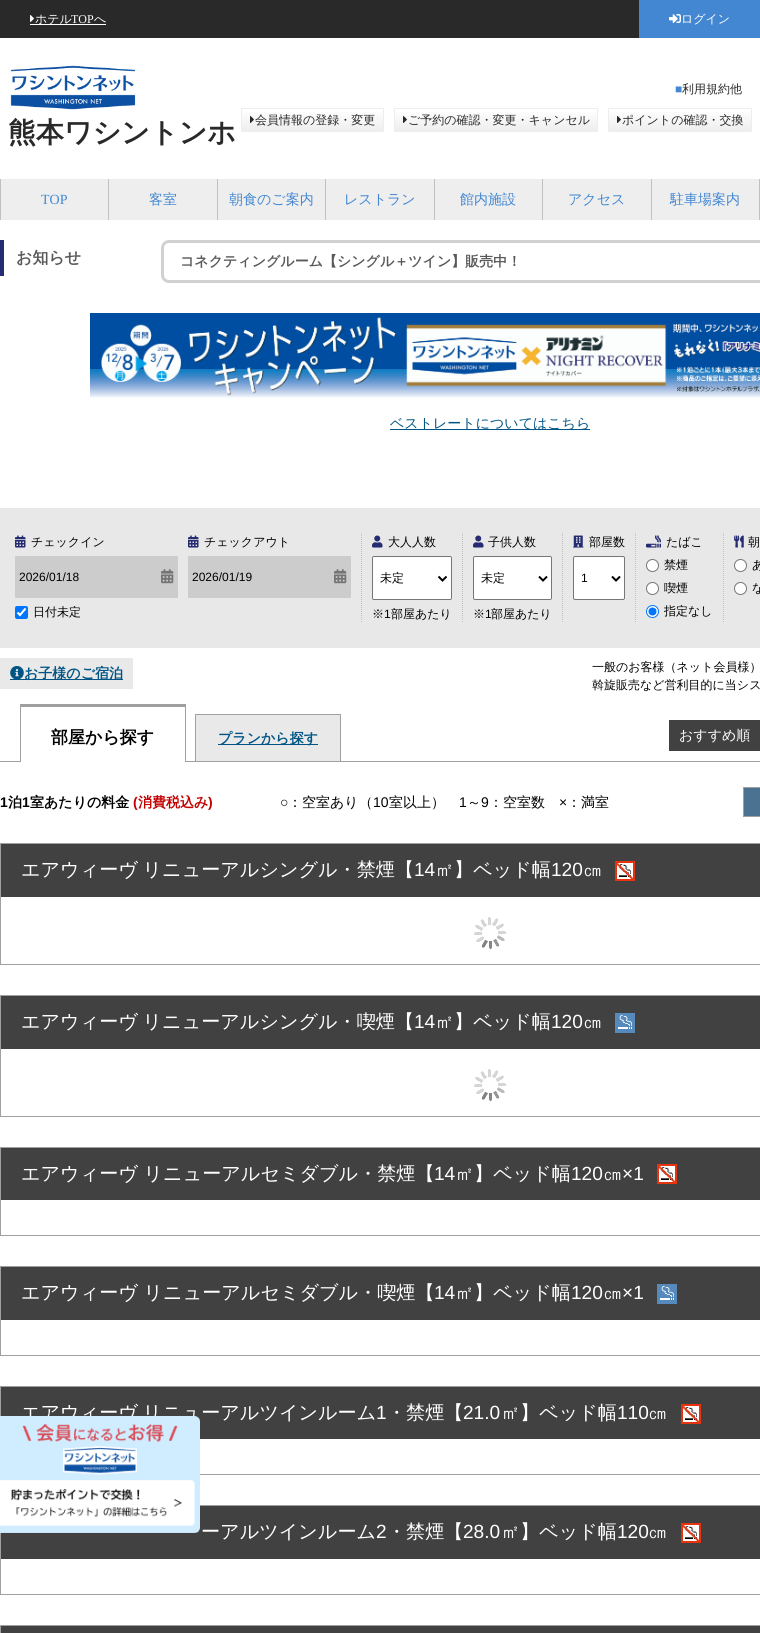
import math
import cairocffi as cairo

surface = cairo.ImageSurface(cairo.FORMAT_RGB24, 760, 1633)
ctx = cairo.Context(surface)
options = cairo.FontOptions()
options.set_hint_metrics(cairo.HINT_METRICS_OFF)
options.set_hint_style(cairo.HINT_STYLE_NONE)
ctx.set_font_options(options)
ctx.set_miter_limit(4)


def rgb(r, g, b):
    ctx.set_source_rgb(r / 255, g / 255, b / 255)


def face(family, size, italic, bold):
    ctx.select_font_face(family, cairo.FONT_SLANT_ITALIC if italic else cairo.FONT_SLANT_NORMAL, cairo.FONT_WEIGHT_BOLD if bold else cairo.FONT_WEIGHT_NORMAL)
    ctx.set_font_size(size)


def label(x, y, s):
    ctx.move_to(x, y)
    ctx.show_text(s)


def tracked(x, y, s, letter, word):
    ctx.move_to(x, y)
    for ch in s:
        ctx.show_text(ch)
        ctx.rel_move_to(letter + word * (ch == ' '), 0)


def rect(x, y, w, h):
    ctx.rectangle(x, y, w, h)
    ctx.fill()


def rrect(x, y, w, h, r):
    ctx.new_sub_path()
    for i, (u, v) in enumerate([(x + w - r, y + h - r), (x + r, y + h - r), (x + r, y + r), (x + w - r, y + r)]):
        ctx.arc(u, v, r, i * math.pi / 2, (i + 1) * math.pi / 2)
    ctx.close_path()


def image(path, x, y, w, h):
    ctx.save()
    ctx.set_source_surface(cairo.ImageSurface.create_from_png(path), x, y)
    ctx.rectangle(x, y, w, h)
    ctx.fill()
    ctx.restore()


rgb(255, 255, 255)
ctx.paint()
rgb(41, 41, 41)
rect(0, 0, 639, 38)
image('image0.png', 30, 15, 4, 7)
rgb(255, 255, 255)
rect(30, 24, 76, 1)
face('WenQuanYi Zen Hei Medium', 12, 0, 0)
label(35, 23, 'ホテル')
face('Liberation Serif', 12, 0, 0)
label(71, 23, 'TOP')
face('WenQuanYi Zen Hei Medium', 12, 0, 0)
label(94, 23, 'へ')
rgb(67, 135, 210)
rect(639, 0, 121, 38)
image('image1.png', 669, 14, 12, 10)
rgb(255, 255, 255)
label(681, 23, 'ログイン')
face('Liberation Serif', 12, 0, 0)
rgb(67, 135, 210)
label(675, 93, '■')
face('WenQuanYi Zen Hei Medium', 12, 0, 0)
rgb(41, 41, 41)
label(682, 93, '利用規約他')
gradient = cairo.LinearGradient(313, 109, 313, 131)
gradient.add_color_stop_rgba(0, 1, 1, 1, 1)
gradient.add_color_stop_rgba(1, 0.933, 0.933, 0.933, 1)
ctx.set_source(gradient)
rect(242, 112, 141, 19)
ctx.rectangle(241.5, 108.5, 142, 23)
rgb(238, 238, 238)
ctx.set_line_width(1)
ctx.stroke()
image('image2.png', 250, 116, 4, 7)
rgb(41, 41, 41)
label(255, 124, '会員情報の登録・変更')
gradient = cairo.LinearGradient(496, 109, 496, 131)
gradient.add_color_stop_rgba(0, 1, 1, 1, 1)
gradient.add_color_stop_rgba(1, 0.933, 0.933, 0.933, 1)
ctx.set_source(gradient)
rect(395, 112, 202, 19)
ctx.rectangle(394.5, 108.5, 203, 23)
rgb(238, 238, 238)
ctx.stroke()
image('image2.png', 403, 116, 4, 7)
rgb(41, 41, 41)
label(408, 124, 'ご予約の確認・変更・キャンセル')
gradient = cairo.LinearGradient(680, 109, 680, 131)
gradient.add_color_stop_rgba(0, 1, 1, 1, 1)
gradient.add_color_stop_rgba(1, 0.933, 0.933, 0.933, 1)
ctx.set_source(gradient)
rect(609, 112, 142, 19)
ctx.rectangle(608.5, 108.5, 143, 23)
rgb(238, 238, 238)
ctx.stroke()
image('image2.png', 617, 116, 4, 7)
rgb(41, 41, 41)
label(622, 124, 'ポイントの確認・交換')
image('image3.png', 10, 65, 126, 45)
face('WenQuanYi Zen Hei', 28, 0, 1)
label(8, 142, '熊本ワシントンホ')
rgb(238, 238, 238)
rect(1, 179, 758, 41)
rgb(193, 193, 193)
rect(0, 179, 1, 41)
face('Liberation Serif', 14, 0, 0)
rgb(67, 135, 210)
label(41, 204, 'TOP')
rgb(193, 193, 193)
rect(108, 179, 1, 41)
face('WenQuanYi Zen Hei Medium', 14, 0, 0)
rgb(67, 135, 210)
label(149, 204, '客室')
rgb(193, 193, 193)
rect(217, 179, 1, 41)
rgb(67, 135, 210)
label(229, 204, '朝食のご案内')
rgb(193, 193, 193)
rect(325, 179, 1, 41)
rgb(67, 135, 210)
label(344, 204, 'レストラン')
rgb(193, 193, 193)
rect(434, 179, 1, 41)
rgb(67, 135, 210)
label(460, 204, '館内施設')
rgb(193, 193, 193)
rect(542, 179, 1, 41)
rgb(67, 135, 210)
label(568, 204, 'アクセス')
rgb(193, 193, 193)
rect(759, 179, 1, 41)
rect(651, 179, 1, 41)
rgb(67, 135, 210)
label(670, 204, '駐車場案内')
rgb(38, 44, 114)
rect(0, 240, 4, 36)
face('WenQuanYi Zen Hei', 16, 0, 1)
rgb(89, 89, 89)
label(16, 263, 'お知らせ')
rrect(162.5, 241.5, 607, 40, 6.5)
rgb(209, 209, 209)
ctx.set_line_width(3)
ctx.stroke()
face('WenQuanYi Zen Hei', 14, 0, 1)
rgb(89, 89, 89)
label(180, 266, 'コネクティングルーム【シングル＋ツイン】販売中！')
image('image4.png', 90, 313, 670, 85)
rgb(0, 85, 133)
rect(390, 429, 200, 1)
face('WenQuanYi Zen Hei Medium', 14, 0, 0)
label(390, 428, 'ベストレートについてはこちら')
rgb(232, 232, 232)
rect(0, 508, 760, 140)
ctx.new_path()
ctx.move_to(361.5, 533)
ctx.line_to(361.5, 623)
rgb(193, 193, 193)
ctx.set_line_width(1)
ctx.set_dash([1, 1])
ctx.stroke()
image('image5.png', 15, 535, 11, 13)
face('WenQuanYi Zen Hei Medium', 12, 0, 0)
rgb(0, 0, 0)
label(31, 546, 'チェックイン')
rgb(204, 204, 204)
rrect(15, 556, 163, 42, 1)
ctx.fill()
face('Liberation Sans', 12, 0, 0)
rgb(0, 0, 0)
label(19, 581, '2026/01/18')
image('image6.png', 161, 569, 13, 15)
image('image5.png', 188, 535, 11, 13)
face('WenQuanYi Zen Hei Medium', 12, 0, 0)
label(204, 546, 'チェックアウト')
rgb(204, 204, 204)
rrect(188, 556, 163, 42, 1)
ctx.fill()
face('Liberation Sans', 12, 0, 0)
rgb(0, 0, 0)
label(192, 581, '2026/01/19')
image('image6.png', 334, 569, 13, 15)
rgb(0, 117, 255)
rrect(15, 606, 13, 13, 2)
ctx.fill()
ctx.new_path()
ctx.move_to(17.5, 612.5)
ctx.line_to(20, 615)
ctx.line_to(25.5, 608.5)
rgb(255, 255, 255)
ctx.set_line_width(2.1)
ctx.set_dash([])
ctx.stroke()
face('WenQuanYi Zen Hei Medium', 12, 0, 0)
rgb(0, 0, 0)
label(33, 616, '日付未定')
ctx.new_path()
ctx.move_to(462.5, 533)
ctx.line_to(462.5, 623)
rgb(193, 193, 193)
ctx.set_line_width(1)
ctx.set_dash([1, 1])
ctx.stroke()
image('image7.png', 372, 535, 11, 13)
rgb(0, 0, 0)
label(388, 546, '大人人数')
rgb(255, 255, 255)
rrect(372.5, 556.5, 79, 43, 1.5)
ctx.fill_preserve()
rgb(118, 118, 118)
ctx.set_dash([])
ctx.stroke()
ctx.new_path()
ctx.move_to(438.5, 576.5)
ctx.line_to(442.5, 580.5)
ctx.line_to(446.5, 576.5)
rgb(0, 0, 0)
ctx.set_line_width(2)
ctx.stroke()
label(380, 582, '未定')
label(372, 618, '※')
face('Liberation Sans', 12, 0, 0)
label(384, 618, '1')
face('WenQuanYi Zen Hei Medium', 12, 0, 0)
label(391, 618, '部屋あたり')
ctx.new_path()
ctx.move_to(562.5, 533)
ctx.line_to(562.5, 623)
rgb(193, 193, 193)
ctx.set_line_width(1)
ctx.set_dash([1, 1])
ctx.stroke()
image('image7.png', 473, 535, 11, 13)
rgb(0, 0, 0)
label(488, 546, '子供人数')
rgb(255, 255, 255)
rrect(473.5, 556.5, 78, 43, 1.5)
ctx.fill_preserve()
rgb(118, 118, 118)
ctx.set_dash([])
ctx.stroke()
ctx.new_path()
ctx.move_to(539, 576.5)
ctx.line_to(543, 580.5)
ctx.line_to(547, 576.5)
rgb(0, 0, 0)
ctx.set_line_width(2)
ctx.stroke()
label(481, 582, '未定')
label(473, 618, '※')
face('Liberation Sans', 12, 0, 0)
label(485, 618, '1')
face('WenQuanYi Zen Hei Medium', 12, 0, 0)
label(491, 618, '部屋あたり')
ctx.new_path()
ctx.move_to(635.5, 533)
ctx.line_to(635.5, 623)
rgb(193, 193, 193)
ctx.set_line_width(1)
ctx.set_dash([1, 1])
ctx.stroke()
image('image8.png', 573, 535, 11, 13)
rgb(0, 0, 0)
label(589, 546, '部屋数')
rgb(255, 255, 255)
rrect(573.5, 556.5, 51, 43, 1.5)
ctx.fill_preserve()
rgb(118, 118, 118)
ctx.set_dash([])
ctx.stroke()
ctx.new_path()
ctx.move_to(612, 576.5)
ctx.line_to(616, 580.5)
ctx.line_to(620, 576.5)
rgb(0, 0, 0)
ctx.set_line_width(2)
ctx.stroke()
face('Liberation Sans', 12, 0, 0)
label(581, 582, '1')
ctx.new_path()
ctx.move_to(723.5, 533)
ctx.line_to(723.5, 623)
rgb(193, 193, 193)
ctx.set_line_width(1)
ctx.set_dash([1, 1])
ctx.stroke()
image('image9.png', 646, 535, 15, 13)
face('WenQuanYi Zen Hei Medium', 12, 0, 0)
rgb(0, 0, 0)
label(666, 546, 'たばこ')
rgb(255, 255, 255)
ctx.new_path()
ctx.arc(652.5, 565.5, 6, 0, 2 * math.pi)
ctx.fill_preserve()
rgb(118, 118, 118)
ctx.set_dash([])
ctx.stroke()
rgb(0, 0, 0)
label(664, 569, '禁煙')
rgb(255, 255, 255)
ctx.new_path()
ctx.arc(652.5, 588.5, 6, 0, 2 * math.pi)
ctx.fill_preserve()
rgb(118, 118, 118)
ctx.stroke()
rgb(0, 0, 0)
label(664, 592, '喫煙')
rgb(255, 255, 255)
ctx.new_path()
ctx.arc(652.5, 611.5, 6, 0, 2 * math.pi)
ctx.fill_preserve()
rgb(0, 117, 255)
ctx.stroke()
ctx.arc(652.5, 611.5, 4, 0, 2 * math.pi)
ctx.fill()
rgb(0, 0, 0)
label(664, 615, '指定なし')
image('image10.png', 734, 535, 10, 13)
label(748, 546, '朝')
rgb(255, 255, 255)
ctx.new_path()
ctx.arc(740.5, 565.5, 6, 0, 2 * math.pi)
ctx.fill_preserve()
rgb(118, 118, 118)
ctx.stroke()
rgb(0, 0, 0)
label(752, 569, 'あ')
rgb(255, 255, 255)
ctx.new_path()
ctx.arc(740.5, 588.5, 6, 0, 2 * math.pi)
ctx.fill_preserve()
rgb(118, 118, 118)
ctx.stroke()
rgb(0, 0, 0)
label(752, 592, 'な')
rgb(233, 233, 233)
rect(0, 658, 133, 31)
image('image11.png', 10, 666, 14, 13)
rgb(0, 85, 133)
rect(10, 679, 113, 1)
face('WenQuanYi Zen Hei', 14, 0, 1)
label(24, 678, 'お子様のご宿泊')
face('WenQuanYi Zen Hei Medium', 12, 0, 0)
rgb(0, 0, 0)
label(592, 671, '一般のお客様（ネット会員様）')
label(592, 689, '斡旋販売など営利目的に当シス')
rgb(233, 233, 233)
rect(196, 715, 144, 46)
ctx.save()
ctx.rectangle(0, 694, 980, 68)
ctx.clip()
ctx.rectangle(195.5, 714.5, 145, 48)
rgb(160, 160, 160)
ctx.stroke()
ctx.restore()
rgb(160, 160, 160)
rect(0, 761, 760, 1)
rgb(255, 255, 255)
rect(21, 761, 164, 1)
rgb(160, 160, 160)
rect(20, 704, 166, 1)
rect(185, 704, 1, 58)
rect(20, 704, 1, 58)
rect(21, 705, 164, 2)
face('WenQuanYi Zen Hei', 17, 0, 1)
rgb(0, 0, 0)
label(51, 743, '部屋から探す')
rgb(0, 85, 133)
rect(218, 744, 100, 1)
face('WenQuanYi Zen Hei', 14, 0, 1)
label(218, 743, 'プランから探す')
rgb(65, 65, 65)
rect(669, 720, 91, 31)
face('WenQuanYi Zen Hei Medium', 14, 0, 0)
rgb(255, 255, 255)
label(679, 740, 'おすすめ順')
face('Liberation Sans', 14, 0, 1)
rgb(0, 0, 0)
label(0, 807, '1')
face('WenQuanYi Zen Hei', 14, 0, 1)
label(8, 807, '泊')
face('Liberation Sans', 14, 0, 1)
label(22, 807, '1')
face('WenQuanYi Zen Hei', 14, 0, 1)
label(30, 807, '室あたりの料金')
face('Liberation Sans', 14, 0, 1)
rgb(194, 0, 0)
label(133, 807, '(')
face('WenQuanYi Zen Hei', 14, 0, 1)
label(138, 807, '消費税込み')
face('Liberation Sans', 14, 0, 1)
label(208, 807, ')')
face('Liberation Sans', 14, 0, 0)
rgb(0, 0, 0)
label(280, 807, '○')
face('WenQuanYi Zen Hei Medium', 14, 0, 0)
label(288, 807, '：空室あり（')
face('Liberation Sans', 14, 0, 0)
label(373, 807, '10')
face('WenQuanYi Zen Hei Medium', 14, 0, 0)
label(389, 807, '室以上）')
face('Liberation Sans', 14, 0, 0)
label(459, 807, '1')
face('WenQuanYi Zen Hei Medium', 14, 0, 0)
label(467, 807, '～')
face('Liberation Sans', 14, 0, 0)
label(481, 807, '9')
face('WenQuanYi Zen Hei Medium', 14, 0, 0)
label(489, 807, '：空室数')
face('Liberation Sans', 14, 0, 0)
label(559, 807, '×')
face('WenQuanYi Zen Hei Medium', 14, 0, 0)
label(567, 807, '：満室')
rgb(160, 160, 160)
rect(743, 787, 17, 1)
rect(743, 816, 17, 1)
rect(743, 787, 1, 30)
rgb(76, 114, 145)
rect(744, 788, 16, 28)
ctx.rectangle(0.5, 843.5, 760, 121)
rgb(160, 160, 160)
ctx.stroke()
rgb(65, 65, 65)
rect(1, 844, 759, 53)
face('WenQuanYi Zen Hei Medium', 19.1, 0, 0)
rgb(255, 255, 255)
tracked(21, 876, 'エアウィーヴ リニューアルシングル・禁煙【', 0, -1)
face('Liberation Sans', 19.1, 0, 0)
label(414, 876, '14')
face('WenQuanYi Zen Hei Medium', 19.1, 0, 0)
label(435, 876, '㎡】ベッド幅')
face('Liberation Sans', 19.1, 0, 0)
label(551, 876, '120')
face('WenQuanYi Zen Hei Medium', 19.1, 0, 0)
label(583, 876, '㎝')
image('image12.png', 615, 861, 20, 20)
image('image13.png', 474, 917, 32, 32)
ctx.rectangle(0.5, 995.5, 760, 121)
rgb(160, 160, 160)
ctx.stroke()
rgb(65, 65, 65)
rect(1, 996, 759, 53)
rgb(255, 255, 255)
tracked(21, 1028, 'エアウィーヴ リニューアルシングル・喫煙【', 0, -1)
face('Liberation Sans', 19.1, 0, 0)
label(414, 1028, '14')
face('WenQuanYi Zen Hei Medium', 19.1, 0, 0)
label(435, 1028, '㎡】ベッド幅')
face('Liberation Sans', 19.1, 0, 0)
label(551, 1028, '120')
face('WenQuanYi Zen Hei Medium', 19.1, 0, 0)
label(583, 1028, '㎝')
image('image14.png', 615, 1013, 20, 20)
image('image13.png', 474, 1069, 32, 32)
ctx.rectangle(0.5, 1147.5, 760, 88)
rgb(160, 160, 160)
ctx.stroke()
rgb(65, 65, 65)
rect(1, 1148, 759, 52)
rgb(255, 255, 255)
label(21, 1180, 'エアウィーヴ リニューアルセミダブル・禁煙【')
face('Liberation Sans', 19.1, 0, 0)
label(434, 1180, '14')
face('WenQuanYi Zen Hei Medium', 19.1, 0, 0)
label(455, 1180, '㎡】ベッド幅')
face('Liberation Sans', 19.1, 0, 0)
label(571, 1180, '120')
face('WenQuanYi Zen Hei Medium', 19.1, 0, 0)
label(603, 1180, '㎝')
face('Liberation Sans', 19.1, 0, 0)
label(622, 1180, '×1')
image('image12.png', 657, 1164, 20, 20)
ctx.rectangle(0.5, 1266.5, 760, 89)
rgb(160, 160, 160)
ctx.stroke()
rgb(65, 65, 65)
rect(1, 1267, 759, 53)
face('WenQuanYi Zen Hei Medium', 19.1, 0, 0)
rgb(255, 255, 255)
label(21, 1299, 'エアウィーヴ リニューアルセミダブル・喫煙【')
face('Liberation Sans', 19.1, 0, 0)
label(434, 1299, '14')
face('WenQuanYi Zen Hei Medium', 19.1, 0, 0)
label(455, 1299, '㎡】ベッド幅')
face('Liberation Sans', 19.1, 0, 0)
label(571, 1299, '120')
face('WenQuanYi Zen Hei Medium', 19.1, 0, 0)
label(603, 1299, '㎝')
face('Liberation Sans', 19.1, 0, 0)
label(622, 1299, '×1')
image('image14.png', 657, 1284, 20, 20)
ctx.rectangle(0.5, 1386.5, 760, 88)
rgb(160, 160, 160)
ctx.stroke()
rgb(65, 65, 65)
rect(1, 1387, 759, 52)
face('WenQuanYi Zen Hei Medium', 19.1, 0, 0)
rgb(255, 255, 255)
tracked(21, 1419, 'エアウィーヴ リニューアルツインルーム', 0, -1)
face('Liberation Sans', 19.1, 0, 0)
label(376, 1419, '1')
face('WenQuanYi Zen Hei Medium', 19.1, 0, 0)
label(387, 1419, '・禁煙【')
face('Liberation Sans', 19.1, 0, 0)
label(463, 1419, '21.0')
face('WenQuanYi Zen Hei Medium', 19.1, 0, 0)
label(501, 1419, '㎡】ベッド幅')
face('Liberation Sans', 19.1, 0, 0)
label(617, 1419, '110')
face('WenQuanYi Zen Hei Medium', 19.1, 0, 0)
label(648, 1419, '㎝')
image('image12.png', 681, 1404, 20, 20)
ctx.rectangle(0.5, 1505.5, 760, 89)
rgb(160, 160, 160)
ctx.stroke()
rgb(65, 65, 65)
rect(1, 1506, 759, 53)
rgb(255, 255, 255)
tracked(201, 1538, 'ーアルツインルーム', 0, -1)
face('Liberation Sans', 19.1, 0, 0)
label(376, 1538, '2')
face('WenQuanYi Zen Hei Medium', 19.1, 0, 0)
label(387, 1538, '・禁煙【')
face('Liberation Sans', 19.1, 0, 0)
label(463, 1538, '28.0')
face('WenQuanYi Zen Hei Medium', 19.1, 0, 0)
label(501, 1538, '㎡】ベッド幅')
face('Liberation Sans', 19.1, 0, 0)
label(617, 1538, '120')
face('WenQuanYi Zen Hei Medium', 19.1, 0, 0)
label(648, 1538, '㎝')
image('image12.png', 681, 1523, 20, 20)
ctx.rectangle(0.5, 1625.5, 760, 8)
rgb(160, 160, 160)
ctx.stroke()
rgb(65, 65, 65)
rect(1, 1626, 759, 7)
image('image15.png', 0, 1416, 200, 117)
surface.write_to_png('render.png')
